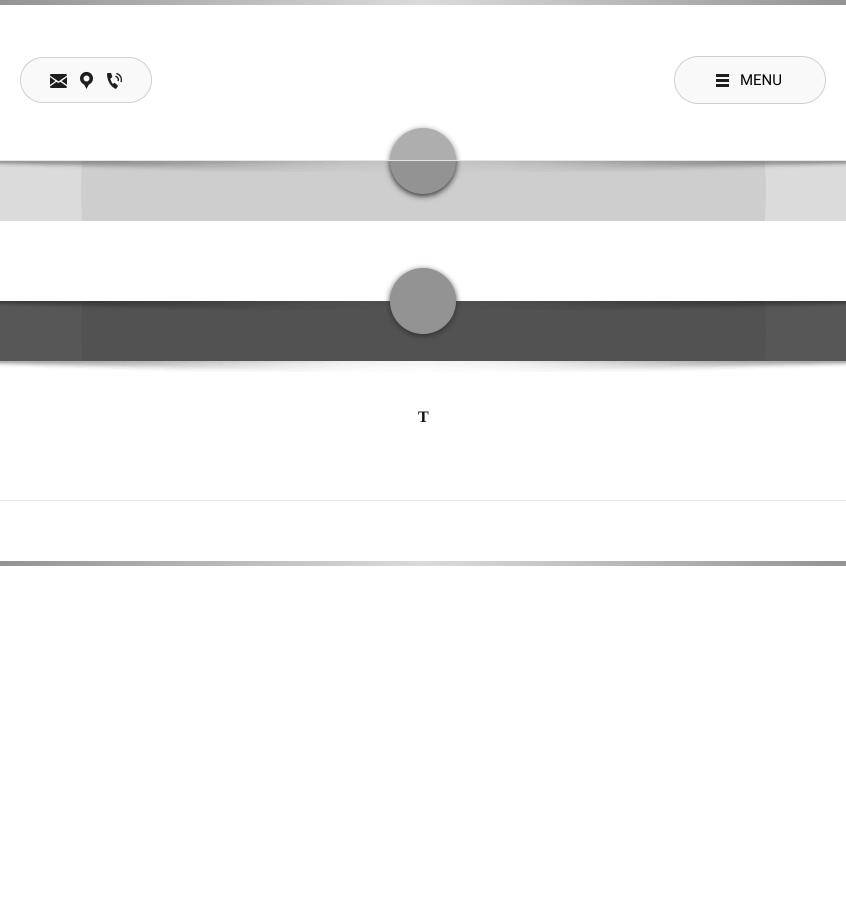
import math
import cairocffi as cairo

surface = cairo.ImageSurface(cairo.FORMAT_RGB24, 846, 910)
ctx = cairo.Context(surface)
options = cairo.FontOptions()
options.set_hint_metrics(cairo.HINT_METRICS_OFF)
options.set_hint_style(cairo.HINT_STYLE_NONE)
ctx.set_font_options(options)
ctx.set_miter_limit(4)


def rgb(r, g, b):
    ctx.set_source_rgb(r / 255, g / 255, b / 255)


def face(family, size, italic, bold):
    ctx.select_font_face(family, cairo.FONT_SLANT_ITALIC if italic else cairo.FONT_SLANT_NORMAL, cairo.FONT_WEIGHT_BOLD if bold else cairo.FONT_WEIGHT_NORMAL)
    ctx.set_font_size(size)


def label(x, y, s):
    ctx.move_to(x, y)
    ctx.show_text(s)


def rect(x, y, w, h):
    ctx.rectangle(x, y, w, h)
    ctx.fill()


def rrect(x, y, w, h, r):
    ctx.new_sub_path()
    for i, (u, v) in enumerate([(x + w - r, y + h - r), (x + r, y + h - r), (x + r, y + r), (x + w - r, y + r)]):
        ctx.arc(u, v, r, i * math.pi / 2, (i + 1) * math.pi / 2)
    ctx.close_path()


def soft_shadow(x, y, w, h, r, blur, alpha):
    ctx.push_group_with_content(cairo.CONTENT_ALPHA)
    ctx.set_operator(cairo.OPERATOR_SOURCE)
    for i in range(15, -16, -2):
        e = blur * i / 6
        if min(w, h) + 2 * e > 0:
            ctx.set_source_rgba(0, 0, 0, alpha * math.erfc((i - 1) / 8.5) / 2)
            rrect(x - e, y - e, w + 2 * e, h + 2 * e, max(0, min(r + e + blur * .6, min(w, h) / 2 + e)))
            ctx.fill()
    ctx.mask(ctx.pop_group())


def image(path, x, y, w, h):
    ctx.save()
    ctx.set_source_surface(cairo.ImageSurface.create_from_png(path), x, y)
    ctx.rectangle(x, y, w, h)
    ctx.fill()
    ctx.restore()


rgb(255, 255, 255)
ctx.paint()
gradient = cairo.LinearGradient(0, 2.5, 846, 2.5)
gradient.add_color_stop_rgba(0, 0.576, 0.576, 0.576, 1)
gradient.add_color_stop_rgba(0.5, 0.859, 0.859, 0.859, 1)
gradient.add_color_stop_rgba(1, 0.576, 0.576, 0.576, 1)
ctx.set_source(gradient)
rect(0, 0, 846, 5)
rgb(219, 219, 219)
rect(0, 161, 846, 60)
ctx.save()
ctx.rectangle(81, 161, 685, 60)
ctx.clip()
rgb(206, 206, 206)
ctx.arc(423.5, 191.5, 342.5, 0, 2 * math.pi)
ctx.fill()
ctx.restore()
image('image1.png', 0, 161, 846, 11)
rgb(50, 50, 50)
soft_shadow(390, 130, 66, 66, 33, 3, 1)
rgb(147, 147, 147)
ctx.arc(423, 161, 33, 0, 2 * math.pi)
ctx.fill()
ctx.set_source_rgba(1, 1, 1, 0.25)
rect(385, 125, 76, 36)
ctx.set_source_rgba(0.902, 0.902, 0.902, 0.97)
rect(0, 160, 846, 1)
rgb(249, 249, 249)
rrect(20, 57, 132, 46, 23)
ctx.fill()
image('image0.png', 49, 71, 73, 18)
rrect(20.5, 57.5, 131, 45, 22.5)
ctx.set_source_rgba(0, 0, 0, 0.17)
ctx.set_line_width(1)
ctx.stroke()
rgb(249, 249, 249)
rrect(674, 56, 152, 48, 24)
ctx.fill()
rrect(674.5, 56.5, 151, 47, 23.5)
ctx.set_source_rgba(0, 0, 0, 0.17)
ctx.stroke()
rgb(30, 30, 30)
rect(716, 74, 13, 3)
rect(716, 79, 13, 3)
rect(716, 84, 13, 3)
face('Roboto', 15, 0, 0)
rgb(0, 0, 0)
label(740, 85, 'MENU')
rgb(87, 87, 87)
rect(0, 301, 846, 60)
ctx.save()
ctx.rectangle(81, 301, 685, 60)
ctx.clip()
rgb(82, 82, 82)
ctx.arc(423.5, 331.5, 342.5, 0, 2 * math.pi)
ctx.fill()
ctx.restore()
image('image2.png', 0, 301, 846, 9)
rgb(50, 50, 50)
soft_shadow(390, 270, 66, 66, 33, 3, 1)
rgb(147, 147, 147)
ctx.arc(423, 301, 33, 0, 2 * math.pi)
ctx.fill()
image('image3.png', 0, 361, 846, 11)
rgb(231, 231, 231)
rect(0, 500, 846, 1)
face('Liberation Serif', 16, 0, 1)
rgb(17, 17, 17)
label(418, 422, 'T')
gradient = cairo.LinearGradient(0, 564, 846, 564)
gradient.add_color_stop_rgba(0, 0.576, 0.576, 0.576, 1)
gradient.add_color_stop_rgba(0.5, 0.859, 0.859, 0.859, 1)
gradient.add_color_stop_rgba(1, 0.576, 0.576, 0.576, 1)
ctx.set_source(gradient)
rect(0, 561, 846, 5)
surface.write_to_png('render.png')
